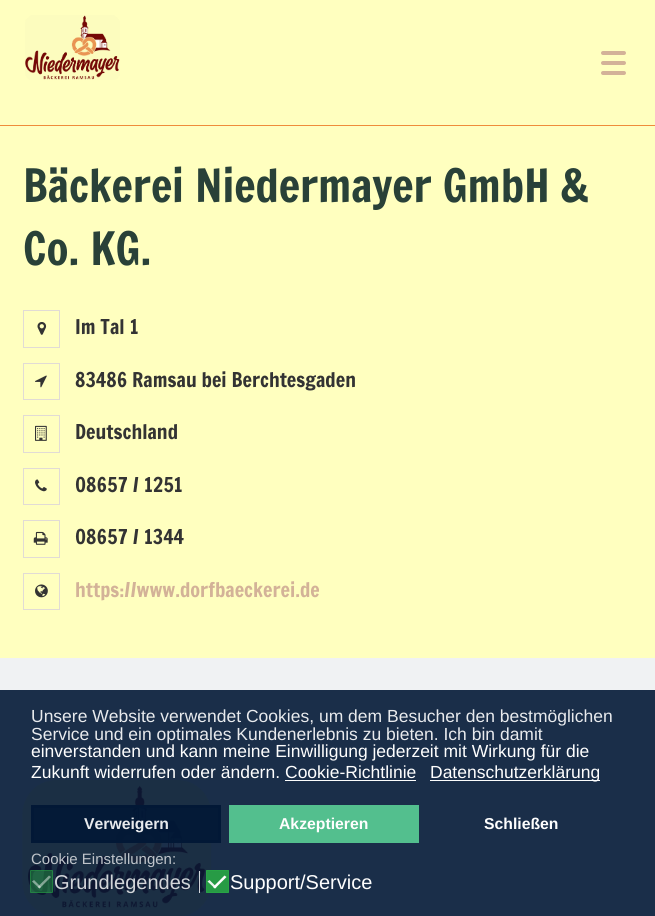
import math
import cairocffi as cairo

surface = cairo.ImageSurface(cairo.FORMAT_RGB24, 655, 916)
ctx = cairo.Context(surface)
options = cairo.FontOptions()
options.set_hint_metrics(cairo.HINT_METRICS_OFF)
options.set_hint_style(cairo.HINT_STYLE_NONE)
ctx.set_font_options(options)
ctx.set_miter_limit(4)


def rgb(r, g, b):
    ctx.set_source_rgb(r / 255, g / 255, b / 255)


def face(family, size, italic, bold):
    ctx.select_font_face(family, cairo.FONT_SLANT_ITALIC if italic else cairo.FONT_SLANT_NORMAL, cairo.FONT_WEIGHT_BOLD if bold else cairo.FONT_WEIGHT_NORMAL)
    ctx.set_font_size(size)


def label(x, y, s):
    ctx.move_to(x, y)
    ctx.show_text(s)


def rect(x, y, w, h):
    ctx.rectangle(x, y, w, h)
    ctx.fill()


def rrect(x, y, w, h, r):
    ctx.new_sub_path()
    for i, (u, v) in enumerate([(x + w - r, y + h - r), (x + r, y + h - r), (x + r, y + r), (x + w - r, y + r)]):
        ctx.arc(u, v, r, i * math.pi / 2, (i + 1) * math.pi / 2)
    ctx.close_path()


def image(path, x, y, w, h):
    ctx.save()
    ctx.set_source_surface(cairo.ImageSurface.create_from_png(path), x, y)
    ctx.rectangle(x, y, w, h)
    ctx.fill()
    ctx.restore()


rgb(255, 255, 191)
ctx.paint()
rgb(239, 140, 58)
rect(0, 125, 655, 1)
image('image0.png', 25, 15, 95, 65)
rgb(211, 178, 152)
rrect(601, 61, 25, 4, 2)
ctx.fill()
rrect(601, 51, 25, 4, 2)
ctx.fill()
rrect(601, 71, 25, 4, 2)
ctx.fill()
face('Francois One', 45, 0, 0)
rgb(41, 65, 56)
label(23, 202, 'Bäckerei Niedermayer GmbH &')
label(23, 265, 'Co. KG.')
ctx.rectangle(23.5, 310.5, 36, 37)
rgb(225, 219, 213)
ctx.set_line_width(1)
ctx.stroke()
image('image1.png', 37, 322, 10, 13)
face('Francois One', 20, 0, 0)
rgb(51, 51, 51)
label(75, 334, 'Im Tal 1')
ctx.rectangle(23.5, 363.5, 36, 36)
rgb(225, 219, 213)
ctx.stroke()
image('image2.png', 35, 375, 12, 13)
rgb(51, 51, 51)
label(75, 387, '83486 Ramsau bei Berchtesgaden')
ctx.rectangle(23.5, 415.5, 36, 37)
rgb(225, 219, 213)
ctx.stroke()
image('image3.png', 35, 425, 12, 16)
rgb(51, 51, 51)
label(75, 439, 'Deutschland')
ctx.rectangle(23.5, 468.5, 36, 36)
rgb(225, 219, 213)
ctx.stroke()
image('image4.png', 35, 479, 12, 13)
rgb(51, 51, 51)
label(75, 492, '08657 / 1251')
ctx.rectangle(23.5, 520.5, 36, 37)
rgb(225, 219, 213)
ctx.stroke()
image('image5.png', 33, 531, 15, 14)
rgb(51, 51, 51)
label(75, 544, '08657 / 1344')
ctx.rectangle(23.5, 573.5, 36, 36)
rgb(225, 219, 213)
ctx.stroke()
image('image6.png', 35, 584, 13, 14)
rgb(211, 178, 152)
label(75, 597, 'https://www.dorfbaeckerei.de')
rgb(240, 242, 243)
rect(0, 658, 655, 32)
rgb(26, 46, 73)
rect(0, 690, 655, 226)
image('image7.png', 22, 780, 190, 136)
face('Liberation Sans', 17.5, 0, 0)
rgb(232, 234, 237)
label(31, 722, 'Unsere Website verwendet Cookies, um dem Besucher den bestmöglichen')
label(31, 740, 'Service und ein optimales Kundenerlebnis zu bieten. Ich bin damit')
rgb(254, 254, 254)
label(31, 757, 'einverstanden und kann meine Einwilligung jederzeit mit Wirkung für die')
label(31, 778, 'Zukunft widerrufen oder ändern.')
label(285, 778, 'Cookie-Richtlinie')
rgb(252, 253, 253)
rect(285, 780, 131, 1)
rect(430, 780, 170, 1)
rgb(254, 254, 254)
label(430, 778, 'Datenschutzerklärung')
ctx.set_source_rgba(0.008, 0.094, 0.212, 0.9)
ctx.rectangle(32.5, 806.5, 187, 35)
ctx.fill_preserve()
rgb(2, 24, 54)
ctx.set_line_width(3)
ctx.stroke()
face('Liberation Sans', 15.75, 0, 1)
rgb(232, 234, 237)
label(84, 829, 'Verweigern')
rgb(83, 191, 142)
rect(229, 805, 190, 38)
rgb(254, 254, 254)
label(279, 829, 'Akzeptieren')
label(484, 829, 'Schließen')
face('Liberation Sans', 15, 0, 0)
rgb(191, 196, 202)
label(31, 864, 'Cookie Einstellungen:')
ctx.set_source_rgba(0.157, 0.655, 0.271, 0.45)
rrect(30, 870, 23, 23, 1)
ctx.fill()
rrect(30.5, 870.5, 22, 22, 0.5)
ctx.set_line_width(1)
ctx.stroke()
ctx.set_source_rgba(1, 1, 1, 0.45)
ctx.new_path()
ctx.move_to(49, 875.5)
ctx.line_to(51, 877)
ctx.line_to(39.5, 888.5)
ctx.line_to(37.5, 887)
ctx.close_path()
ctx.fill()
ctx.new_path()
ctx.move_to(34, 880)
ctx.line_to(41, 887)
ctx.line_to(39.5, 888.5)
ctx.line_to(32, 881.5)
ctx.close_path()
ctx.fill()
ctx.set_source_rgba(1, 1, 1, 0.81)
rect(199, 871, 1, 22)
face('Liberation Sans', 20, 0, 0)
rgb(210, 213, 217)
label(54, 889, 'Grundlegendes')
ctx.set_source_rgba(0.157, 0.655, 0.271, 0.9)
rrect(206, 870, 23, 23, 1)
ctx.fill()
rrect(206.5, 870.5, 22, 22, 0.5)
ctx.stroke()
rgb(254, 254, 254)
ctx.new_path()
ctx.move_to(224.5, 875.5)
ctx.line_to(226.5, 877)
ctx.line_to(215, 888.5)
ctx.line_to(213, 887)
ctx.close_path()
ctx.fill()
ctx.set_source_rgba(1, 1, 1, 0.9)
ctx.new_path()
ctx.move_to(209.5, 880)
ctx.line_to(216.5, 887)
ctx.line_to(215, 888.5)
ctx.line_to(207.5, 881.5)
ctx.close_path()
ctx.fill()
rgb(254, 254, 254)
label(230, 889, 'Support/Service')
surface.write_to_png('render.png')
